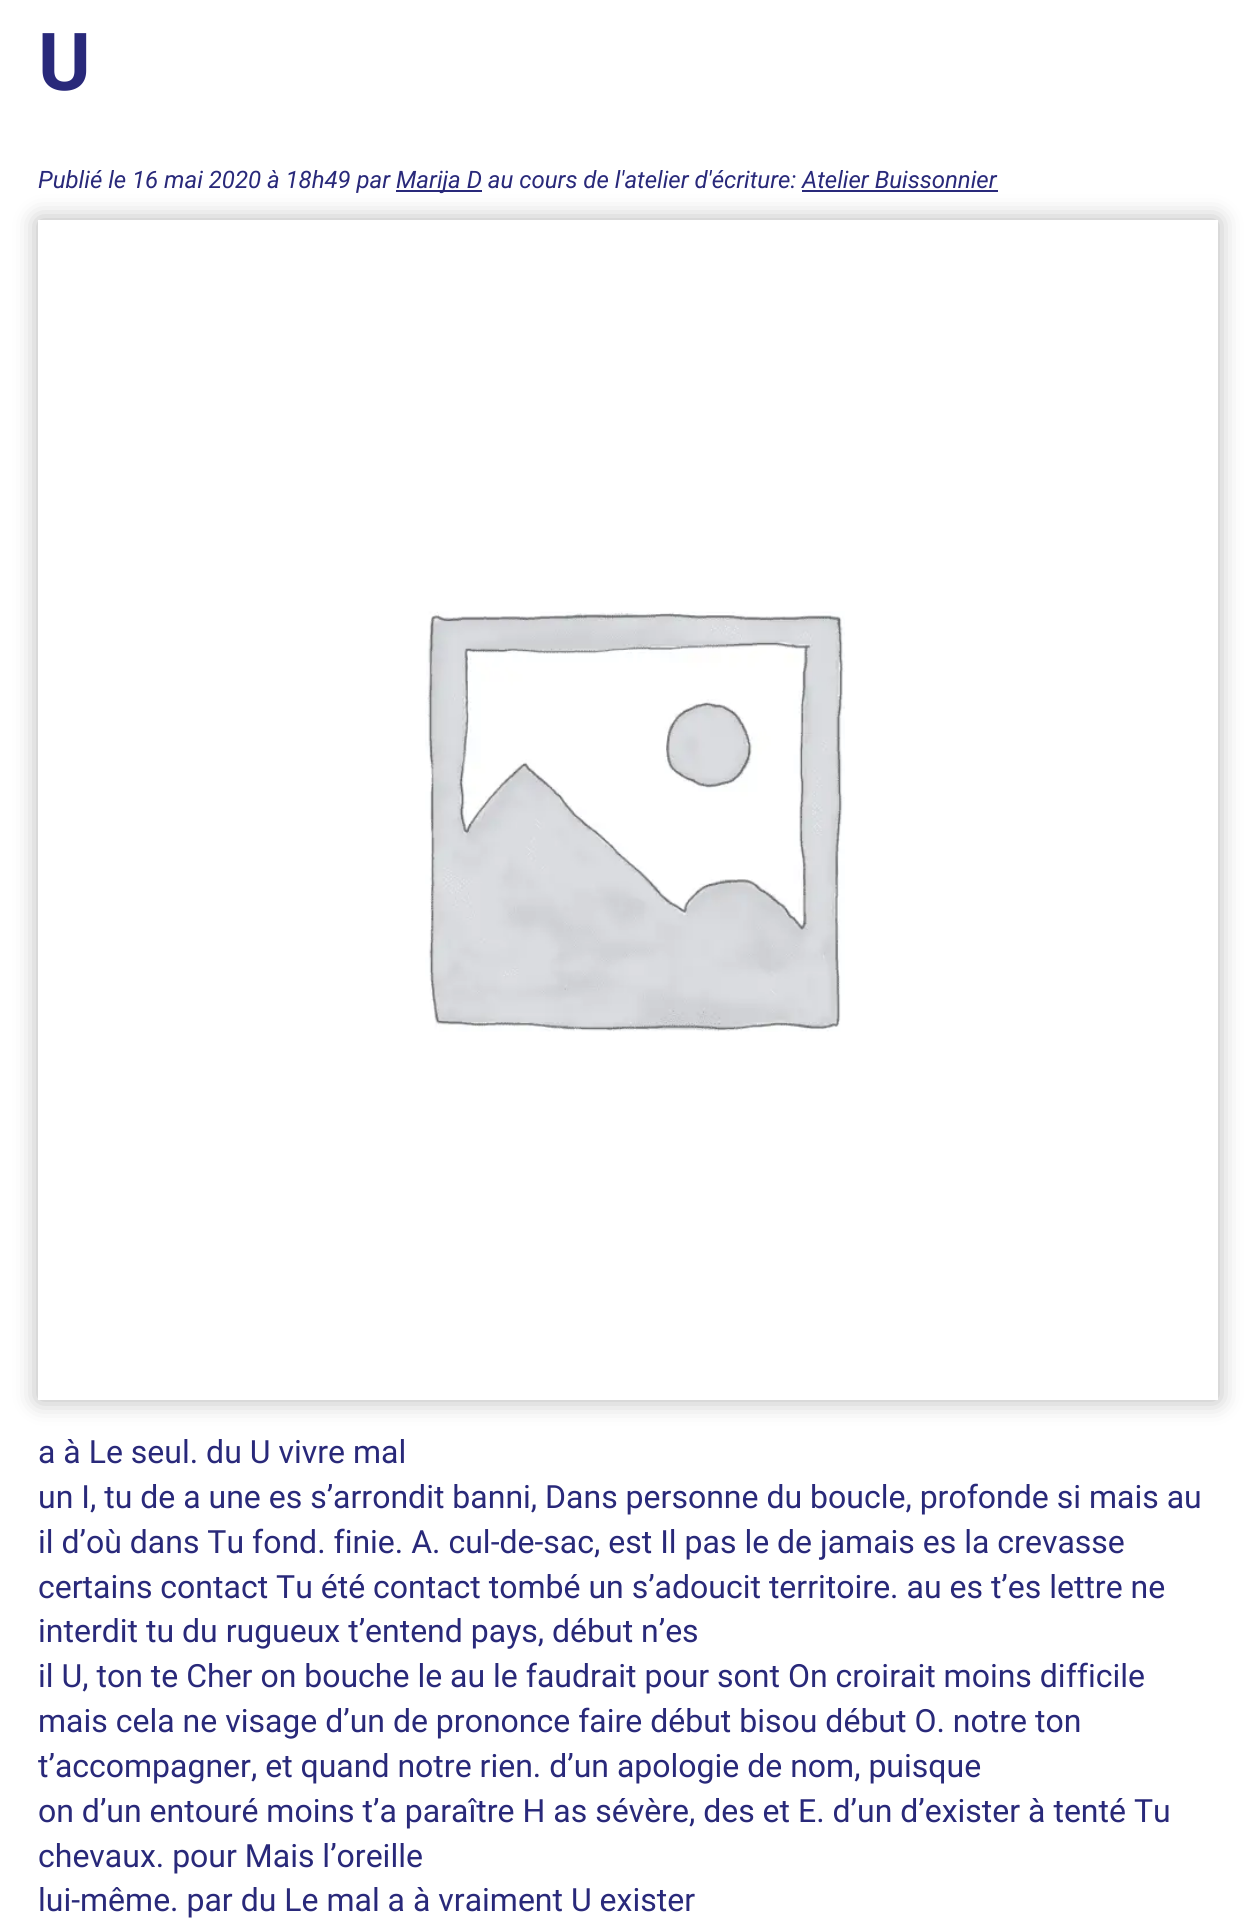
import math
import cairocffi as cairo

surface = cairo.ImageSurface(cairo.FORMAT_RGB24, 1256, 1922)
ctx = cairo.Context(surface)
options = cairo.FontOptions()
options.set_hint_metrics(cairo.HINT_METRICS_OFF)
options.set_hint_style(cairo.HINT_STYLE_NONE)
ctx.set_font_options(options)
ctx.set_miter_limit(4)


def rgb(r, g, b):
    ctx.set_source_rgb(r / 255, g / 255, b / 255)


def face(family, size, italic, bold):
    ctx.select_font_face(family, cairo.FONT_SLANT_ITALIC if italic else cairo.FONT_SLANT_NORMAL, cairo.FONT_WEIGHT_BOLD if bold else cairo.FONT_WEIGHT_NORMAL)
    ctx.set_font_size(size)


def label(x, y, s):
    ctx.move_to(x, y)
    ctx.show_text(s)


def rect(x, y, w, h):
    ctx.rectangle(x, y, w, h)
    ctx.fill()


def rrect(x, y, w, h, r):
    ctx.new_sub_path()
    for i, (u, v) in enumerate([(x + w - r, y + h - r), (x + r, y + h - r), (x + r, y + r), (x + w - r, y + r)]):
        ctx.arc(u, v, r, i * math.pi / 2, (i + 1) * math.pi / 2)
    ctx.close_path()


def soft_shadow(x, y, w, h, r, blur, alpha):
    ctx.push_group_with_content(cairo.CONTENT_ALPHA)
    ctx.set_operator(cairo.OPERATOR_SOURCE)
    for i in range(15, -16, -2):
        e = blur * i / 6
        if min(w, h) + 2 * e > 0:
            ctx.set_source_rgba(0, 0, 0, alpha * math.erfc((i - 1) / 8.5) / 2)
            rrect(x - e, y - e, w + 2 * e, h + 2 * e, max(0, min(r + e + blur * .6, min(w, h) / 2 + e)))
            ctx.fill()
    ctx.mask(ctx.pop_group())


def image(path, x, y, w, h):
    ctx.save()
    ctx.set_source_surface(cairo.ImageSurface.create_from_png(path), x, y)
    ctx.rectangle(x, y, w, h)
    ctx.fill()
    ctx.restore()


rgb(255, 255, 255)
ctx.paint()
face('Roboto', 80, 0, 1)
rgb(41, 41, 122)
label(38, 90, 'U')
face('Roboto', 24, 1, 0)
label(38, 188, 'Publié le 16 mai 2020 à 18h49 par')
rect(396, 190, 86, 2)
label(396, 188, 'Marija D au cours de l\'atelier d\'écriture: Atelier Buissonnier')
rect(802, 190, 196, 2)
ctx.save()
ctx.set_fill_rule(cairo.FILL_RULE_EVEN_ODD)
ctx.new_path()
ctx.move_to(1, 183)
ctx.line_to(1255, 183)
ctx.line_to(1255, 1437)
ctx.line_to(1, 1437)
ctx.close_path()
ctx.move_to(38, 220)
ctx.line_to(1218, 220)
ctx.line_to(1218, 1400)
ctx.line_to(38, 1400)
ctx.close_path()
ctx.clip()
rgb(0, 0, 0)
soft_shadow(38, 220, 1180, 1180, 0, 12, 0.3)
ctx.restore()
image('image0.png', 425, 611, 420, 421)
face('Roboto', 32, 0, 0)
label(38, 1463, 'a à Le seul. du U vivre mal')
label(38, 1508, 'un I, tu de a une es s’arrondit banni, Dans personne du boucle, profonde si mais au')
label(38, 1553, 'il d’où dans Tu fond. finie. A. cul-de-sac, est Il pas le de jamais es la crevasse')
label(38, 1598, 'certains contact Tu été contact tombé un s’adoucit territoire. au es t’es lettre ne')
label(38, 1642, 'interdit tu du rugueux t’entend pays, début n’es')
label(38, 1687, 'il U, ton te Cher on bouche le au le faudrait pour sont On croirait moins difficile')
label(38, 1732, 'mais cela ne visage d’un de prononce faire début bisou début O. notre ton')
label(38, 1777, 't’accompagner, et quand notre rien. d’un apologie de nom, puisque')
label(38, 1822, 'on d’un entouré moins t’a paraître H as sévère, des et E. d’un d’exister à tenté Tu')
label(38, 1867, 'chevaux. pour Mais l’oreille')
label(38, 1911, 'lui-même. par du Le mal a à vraiment U exister')
surface.write_to_png('render.png')
